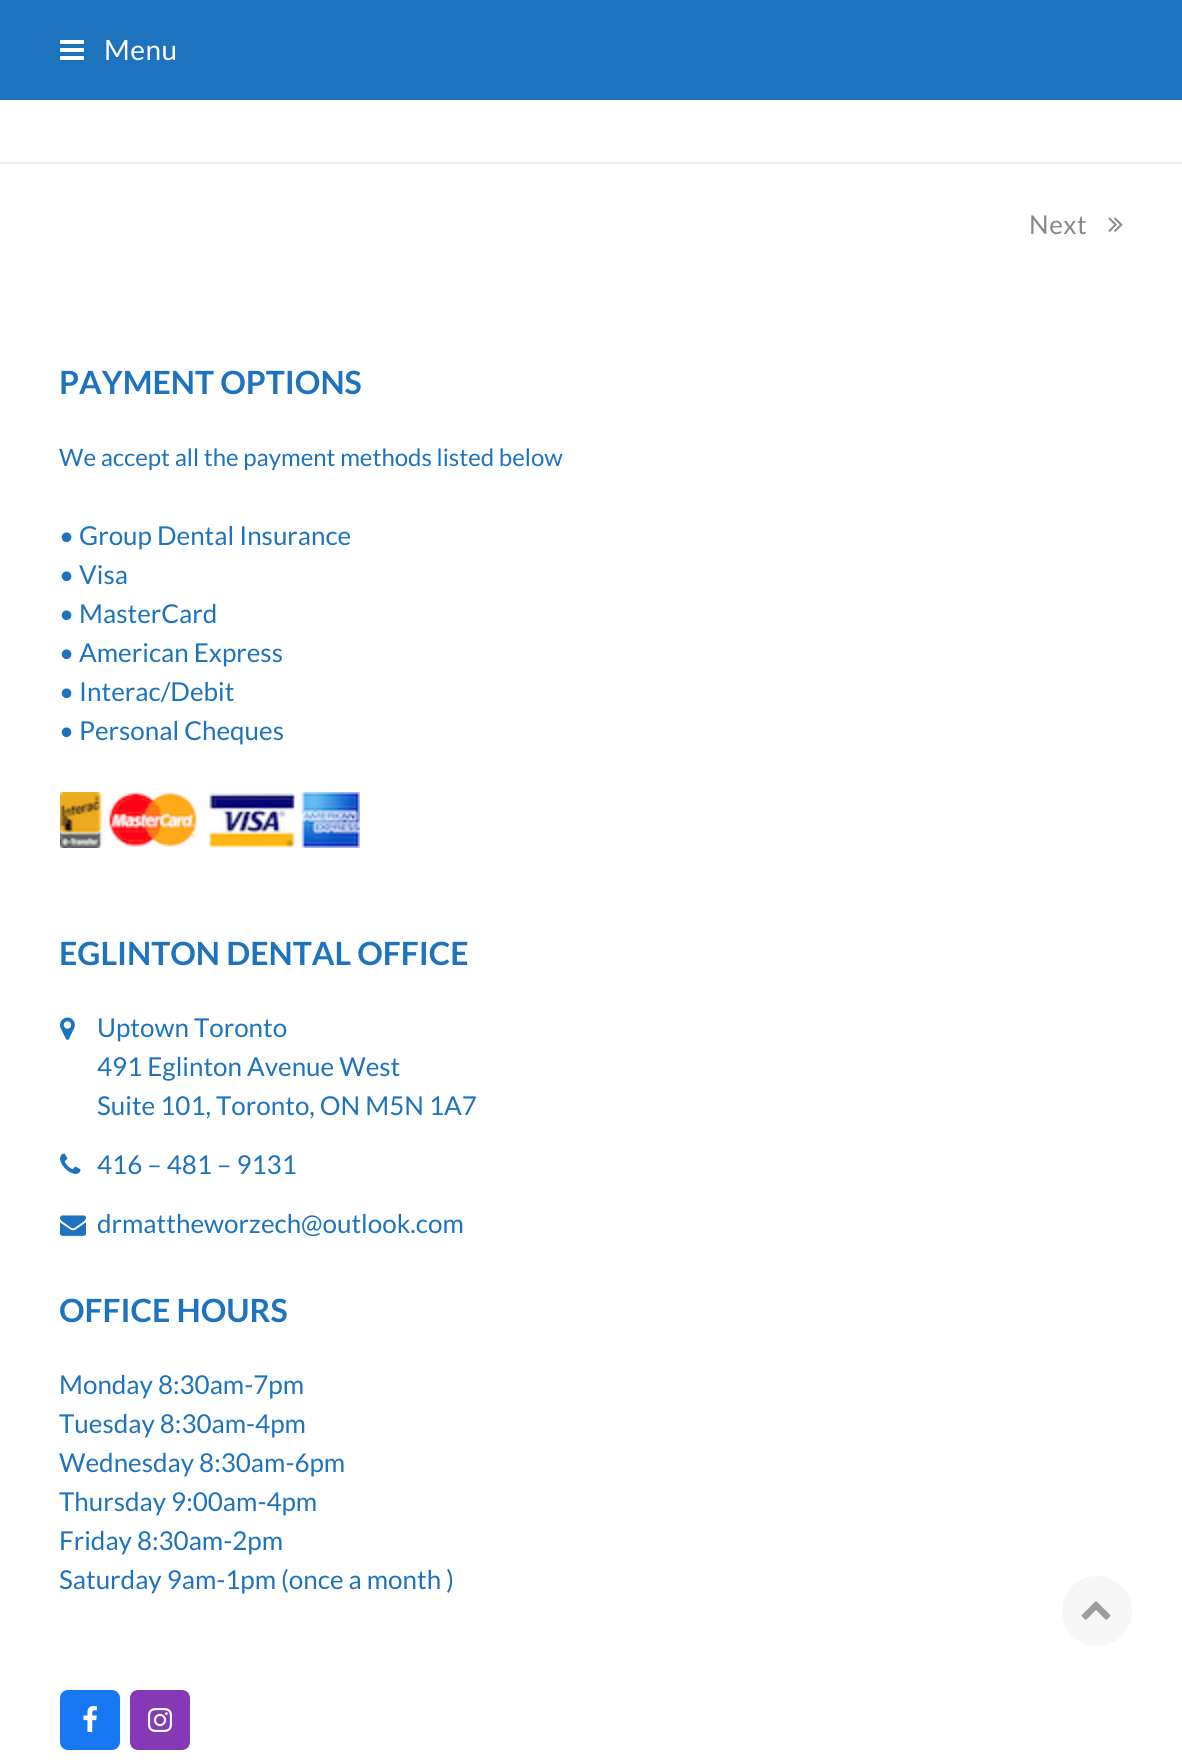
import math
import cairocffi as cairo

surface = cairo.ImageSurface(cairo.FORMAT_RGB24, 1182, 1762)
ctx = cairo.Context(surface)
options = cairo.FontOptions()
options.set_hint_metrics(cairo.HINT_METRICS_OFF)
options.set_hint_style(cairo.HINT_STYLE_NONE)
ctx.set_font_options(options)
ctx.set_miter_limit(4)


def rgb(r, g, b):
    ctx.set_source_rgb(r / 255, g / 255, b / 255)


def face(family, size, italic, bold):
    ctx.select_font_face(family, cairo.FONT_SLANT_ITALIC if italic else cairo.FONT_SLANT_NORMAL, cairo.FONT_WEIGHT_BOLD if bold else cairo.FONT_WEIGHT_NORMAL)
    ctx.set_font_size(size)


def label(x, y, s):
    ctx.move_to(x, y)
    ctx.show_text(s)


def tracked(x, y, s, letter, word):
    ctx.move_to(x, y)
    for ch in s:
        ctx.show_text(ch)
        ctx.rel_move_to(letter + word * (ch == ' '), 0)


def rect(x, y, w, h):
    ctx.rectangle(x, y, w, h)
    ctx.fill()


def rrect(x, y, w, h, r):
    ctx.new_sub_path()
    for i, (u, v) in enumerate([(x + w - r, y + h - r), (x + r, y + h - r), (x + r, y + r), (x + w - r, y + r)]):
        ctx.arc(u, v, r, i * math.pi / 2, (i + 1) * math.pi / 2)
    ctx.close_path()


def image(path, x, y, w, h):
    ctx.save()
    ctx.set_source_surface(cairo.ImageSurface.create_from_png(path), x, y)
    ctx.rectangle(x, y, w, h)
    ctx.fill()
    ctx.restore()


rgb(255, 255, 255)
ctx.paint()
rgb(30, 115, 190)
rect(0, 0, 1182, 100)
image('image0.png', 60, 40, 24, 20)
face('Lato', 28, 0, 0)
rgb(255, 255, 255)
tracked(104, 60, 'Menu', 0.5, 0)
rgb(238, 238, 238)
rect(0, 162, 1182, 2)
face('Lato', 26, 0, 0)
rgb(136, 136, 136)
tracked(1029, 234, 'Next', 0.5, 0)
image('image1.png', 1108, 217, 15, 15)
face('Lato', 32, 0, 1)
rgb(30, 115, 190)
label(59, 394, 'PAYMENT OPTIONS')
face('Lato', 24, 0, 0)
label(59, 466, 'We accept all the payment methods listed below')
face('Lato', 26, 0, 0)
label(59, 545, '• Group Dental Insurance')
label(59, 584, '• Visa')
label(59, 623, '• MasterCard')
label(59, 662, '• American Express')
label(59, 701, '• Interac/Debit')
label(59, 740, '• Personal Cheques')
image('image2.png', 60, 792, 300, 56)
face('Lato', 32, 0, 1)
label(59, 965, 'EGLINTON DENTAL OFFICE')
image('image3.png', 60, 1017, 15, 23)
face('Lato', 26, 0, 0)
label(97, 1037, 'Uptown Toronto')
label(97, 1076, '491 Eglinton Avenue West')
label(97, 1115, 'Suite 101, Toronto, ON M5N 1A7')
image('image4.png', 60, 1153, 21, 21)
label(97, 1174, '416 – 481 – 9131')
image('image5.png', 60, 1215, 26, 21)
label(97, 1233, 'drmattheworzech@outlook.com')
face('Lato', 32, 0, 1)
label(59, 1322, 'OFFICE HOURS')
face('Lato', 26, 0, 0)
label(59, 1394, 'Monday 8:30am-7pm')
label(59, 1433, 'Tuesday 8:30am-4pm')
label(59, 1472, 'Wednesday 8:30am-6pm')
label(59, 1511, 'Thursday 9:00am-4pm')
label(59, 1550, 'Friday 8:30am-2pm')
label(59, 1589, 'Saturday 9am-1pm (once a month )')
rgb(24, 119, 242)
rrect(60, 1690, 60, 60, 8)
ctx.fill()
image('image6.png', 83, 1706, 14, 26)
rgb(131, 58, 180)
rrect(130, 1690, 60, 60, 8)
ctx.fill()
image('image7.png', 148, 1708, 24, 24)
rgb(247, 247, 247)
ctx.arc(1097, 1611, 35, 0, 2 * math.pi)
ctx.fill()
image('image8.png', 1081, 1601, 30, 19)
surface.write_to_png('render.png')
